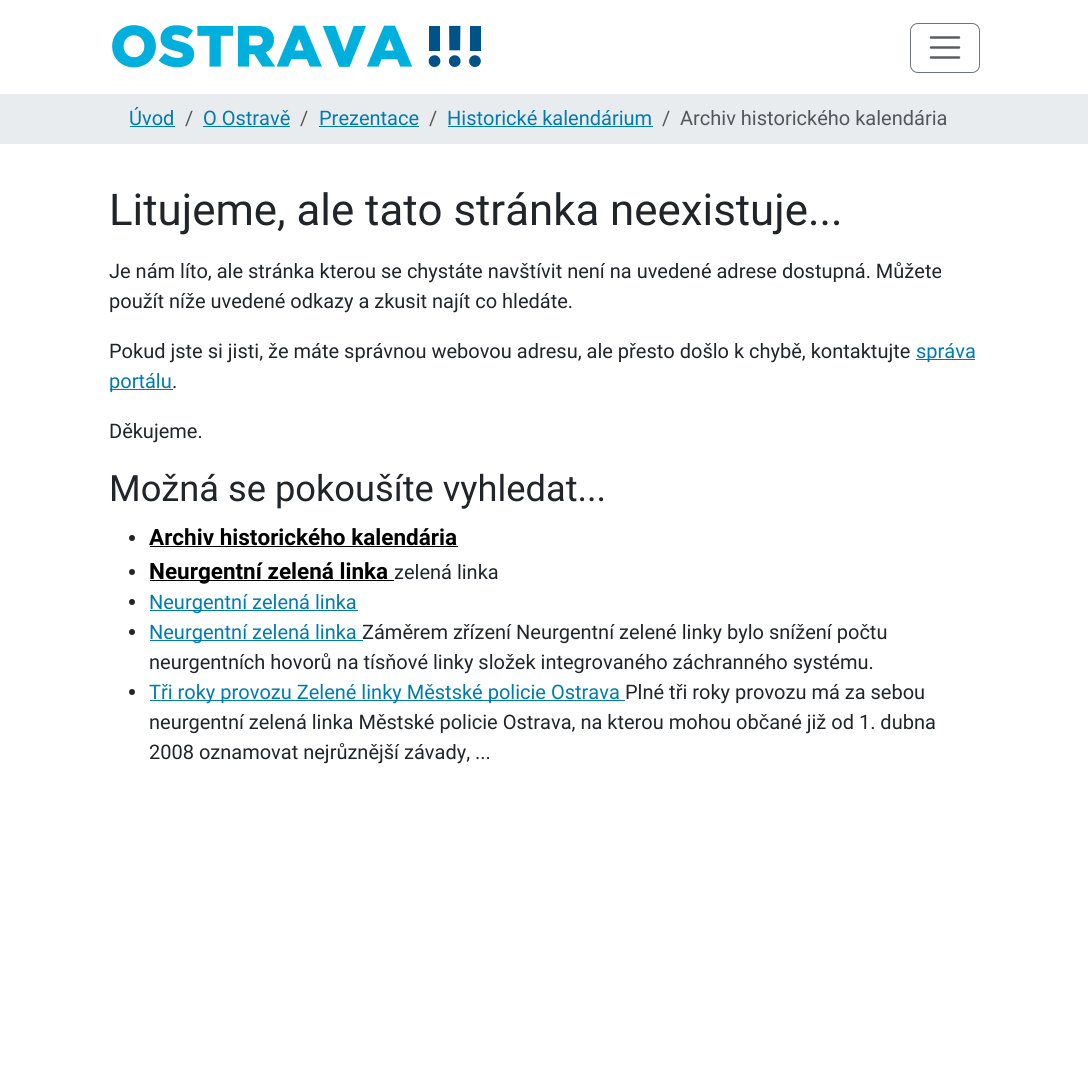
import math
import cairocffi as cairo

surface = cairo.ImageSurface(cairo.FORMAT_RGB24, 1088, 1085)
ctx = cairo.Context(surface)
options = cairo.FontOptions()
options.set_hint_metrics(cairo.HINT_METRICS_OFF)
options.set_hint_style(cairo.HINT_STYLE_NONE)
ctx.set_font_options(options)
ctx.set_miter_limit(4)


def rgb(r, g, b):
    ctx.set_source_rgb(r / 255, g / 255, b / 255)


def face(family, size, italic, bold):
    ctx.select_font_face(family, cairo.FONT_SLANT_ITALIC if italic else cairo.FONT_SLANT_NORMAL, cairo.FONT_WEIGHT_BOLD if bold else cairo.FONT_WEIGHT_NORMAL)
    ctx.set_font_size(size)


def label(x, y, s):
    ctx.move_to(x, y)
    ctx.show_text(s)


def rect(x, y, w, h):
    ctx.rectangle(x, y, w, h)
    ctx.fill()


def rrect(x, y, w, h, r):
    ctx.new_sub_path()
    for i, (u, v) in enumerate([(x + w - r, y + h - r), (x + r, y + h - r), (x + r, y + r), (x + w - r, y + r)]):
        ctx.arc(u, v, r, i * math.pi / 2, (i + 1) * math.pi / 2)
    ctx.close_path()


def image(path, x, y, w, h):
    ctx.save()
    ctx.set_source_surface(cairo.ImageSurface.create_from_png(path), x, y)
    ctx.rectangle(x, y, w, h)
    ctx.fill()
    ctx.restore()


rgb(255, 255, 255)
ctx.paint()
image('image0.png', 112, 25, 369, 43)
rrect(910.5, 23.5, 69, 49, 7.5)
rgb(108, 117, 125)
ctx.set_line_width(1)
ctx.stroke()
ctx.new_path()
ctx.move_to(931, 37.5)
ctx.line_to(959, 37.5)
ctx.move_to(931, 47.5)
ctx.line_to(959, 47.5)
ctx.move_to(931, 57.5)
ctx.line_to(959, 57.5)
rgb(89, 92, 95)
ctx.set_line_width(2.5)
ctx.set_line_cap(cairo.LINE_CAP_ROUND)
ctx.stroke()
rgb(233, 236, 239)
rect(0, 94, 1088, 50)
face('Roboto', 20, 0, 0)
rgb(0, 123, 177)
label(129, 125, 'Úvod')
rect(130, 126, 45, 1)
rgb(83, 87, 91)
label(185, 125, '/')
rgb(0, 123, 177)
label(203, 125, 'O Ostravě')
rect(203, 126, 87, 1)
rgb(83, 87, 91)
label(300, 125, '/')
rgb(0, 123, 177)
label(319, 125, 'Prezentace')
rect(319, 126, 100, 1)
rgb(83, 87, 91)
label(429, 125, '/')
rgb(0, 123, 177)
label(447, 125, 'Historické kalendárium')
rect(448, 126, 205, 1)
rgb(83, 87, 91)
label(662, 125, '/')
label(680, 125, 'Archiv historického kalendária')
face('Roboto', 43.8, 0, 0)
rgb(33, 37, 41)
label(109, 225, 'Litujeme, ale tato stránka neexistuje...')
face('Roboto', 20, 0, 0)
label(109, 278, 'Je nám líto, ale stránka kterou se chystáte navštívit není na uvedené adrese dostupná. Můžete')
label(109, 308, 'použít níže uvedené odkazy a zkusit najít co hledáte.')
label(109, 358, 'Pokud jste si jisti, že máte správnou webovou adresu, ale přesto došlo k chybě, kontaktujte')
rgb(0, 123, 177)
rect(916, 359, 59, 1)
label(916, 358, 'správa')
rect(110, 389, 63, 1)
label(109, 388, 'portálu')
rgb(33, 37, 41)
label(172, 388, '.')
label(109, 438, 'Děkujeme.')
face('Roboto', 36.25, 0, 0)
label(109, 501, 'Možná se pokoušíte vyhledat...')
ctx.new_path()
ctx.arc(132, 538, 3, 0, 2 * math.pi)
ctx.fill()
face('Roboto', 22.5, 0, 1)
rgb(0, 0, 0)
label(149, 545, 'Archiv historického kalendária')
rect(150, 546, 308, 1)
rgb(33, 37, 41)
ctx.new_path()
ctx.arc(132, 572, 3, 0, 2 * math.pi)
ctx.fill()
rgb(0, 0, 0)
rect(150, 580, 244, 1)
label(149, 579, 'Neurgentní zelená linka')
face('Roboto', 20, 0, 0)
rgb(33, 37, 41)
label(394, 579, 'zelená linka')
ctx.new_path()
ctx.arc(132, 602, 3, 0, 2 * math.pi)
ctx.fill()
rgb(0, 123, 177)
rect(150, 610, 208, 1)
label(149, 609, 'Neurgentní zelená linka')
rgb(33, 37, 41)
ctx.new_path()
ctx.arc(132, 632, 3, 0, 2 * math.pi)
ctx.fill()
rgb(0, 123, 177)
rect(150, 640, 213, 1)
label(149, 639, 'Neurgentní zelená linka')
rgb(33, 37, 41)
label(362, 639, 'Záměrem zřízení Neurgentní zelené linky bylo snížení počtu')
label(149, 669, 'neurgentních hovorů na tísňové linky složek integrovaného záchranného systému.')
ctx.new_path()
ctx.arc(132, 692, 3, 0, 2 * math.pi)
ctx.fill()
rgb(0, 123, 177)
rect(150, 700, 475, 1)
label(149, 699, 'Tři roky provozu Zelené linky Městské policie Ostrava')
rgb(33, 37, 41)
label(625, 699, 'Plné tři roky provozu má za sebou')
label(149, 729, 'neurgentní zelená linka Městské policie Ostrava, na kterou mohou občané již od 1. dubna')
label(149, 759, '2008 oznamovat nejrůznější závady, ...')
surface.write_to_png('render.png')
